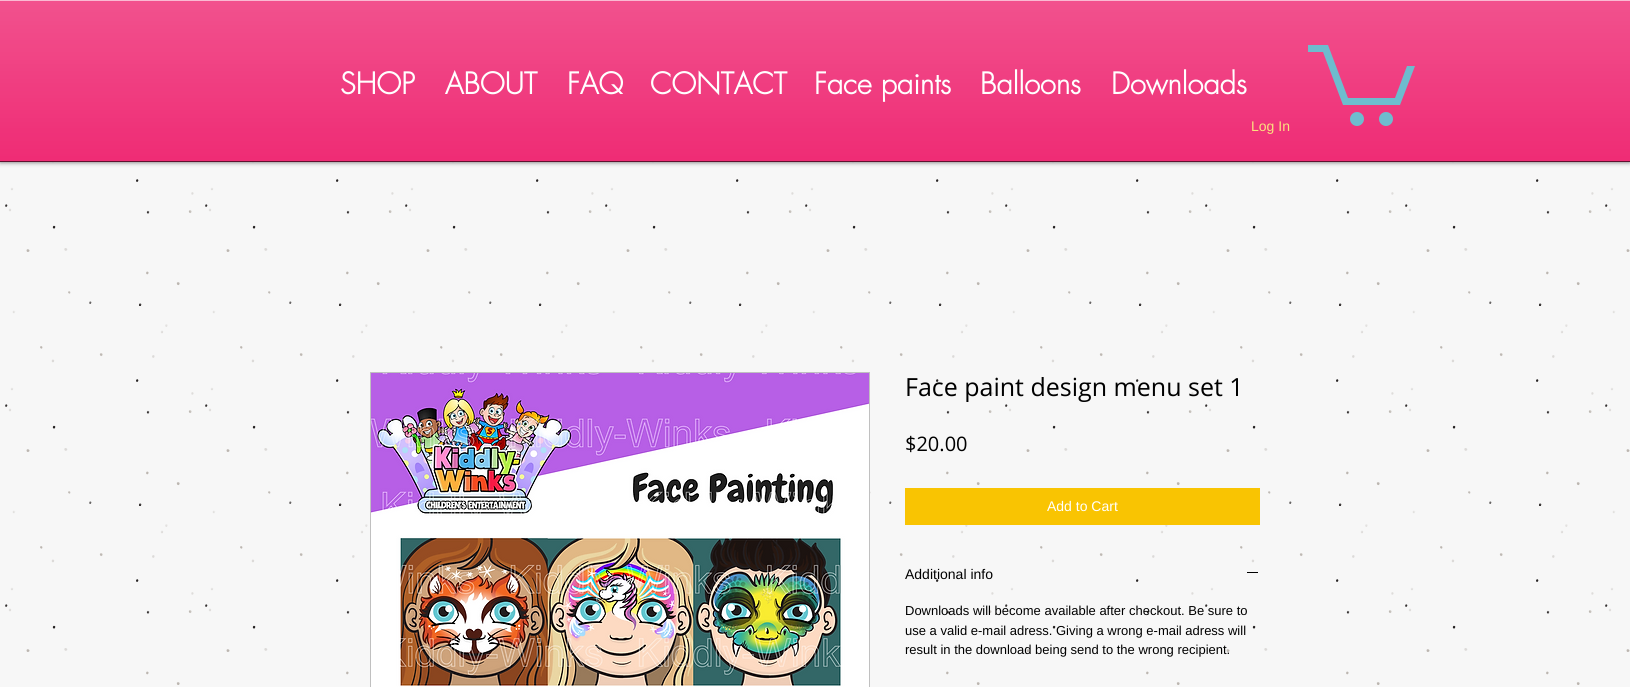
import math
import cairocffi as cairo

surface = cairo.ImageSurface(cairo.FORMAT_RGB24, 1630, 687)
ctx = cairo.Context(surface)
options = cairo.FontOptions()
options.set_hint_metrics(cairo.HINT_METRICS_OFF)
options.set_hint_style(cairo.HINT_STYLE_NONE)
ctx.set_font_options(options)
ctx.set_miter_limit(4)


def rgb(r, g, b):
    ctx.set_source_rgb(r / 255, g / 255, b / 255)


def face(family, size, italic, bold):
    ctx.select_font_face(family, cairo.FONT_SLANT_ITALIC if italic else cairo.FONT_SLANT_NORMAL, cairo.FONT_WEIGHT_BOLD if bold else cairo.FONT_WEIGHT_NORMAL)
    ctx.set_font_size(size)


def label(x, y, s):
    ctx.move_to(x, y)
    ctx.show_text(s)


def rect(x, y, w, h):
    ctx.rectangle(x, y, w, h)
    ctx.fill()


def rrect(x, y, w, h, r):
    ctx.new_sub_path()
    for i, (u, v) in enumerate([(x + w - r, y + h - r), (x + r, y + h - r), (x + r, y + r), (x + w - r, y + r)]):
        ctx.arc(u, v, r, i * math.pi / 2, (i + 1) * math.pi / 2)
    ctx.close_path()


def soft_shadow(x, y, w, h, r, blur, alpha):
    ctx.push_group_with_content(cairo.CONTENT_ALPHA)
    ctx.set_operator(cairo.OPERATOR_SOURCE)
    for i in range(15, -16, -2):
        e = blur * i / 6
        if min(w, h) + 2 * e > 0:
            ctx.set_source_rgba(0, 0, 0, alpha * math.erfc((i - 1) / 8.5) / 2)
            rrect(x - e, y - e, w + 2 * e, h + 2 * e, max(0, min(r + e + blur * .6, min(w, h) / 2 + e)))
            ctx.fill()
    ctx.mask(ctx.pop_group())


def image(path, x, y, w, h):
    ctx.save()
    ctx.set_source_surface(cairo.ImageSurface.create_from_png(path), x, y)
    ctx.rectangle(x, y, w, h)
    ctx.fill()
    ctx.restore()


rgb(247, 247, 247)
ctx.paint()
image('image2.png', 5, 162, 1625, 523)
rgb(0, 0, 0)
soft_shadow(0, 0, 1630, 162, 0, 2.5, 0.6)
rgb(237, 21, 102)
rect(0, 1, 1630, 160)
image('image0.png', 0, 1, 1630, 160)
rgb(95, 17, 47)
rect(0, 161, 1630, 1)
rgb(250, 186, 210)
rect(0, 0, 1630, 1)
face('futura', 29, 0, 1)
rgb(255, 255, 255)
label(340, 94, 'SHOP')
label(445, 94, 'ABOUT')
label(567, 94, 'FAQ')
label(650, 94, 'CONTACT')
label(814, 94, 'Face paints')
label(980, 94, 'Balloons')
label(1111, 94, 'Downloads')
rgb(110, 188, 206)
ctx.new_path()
ctx.move_to(1415, 66)
ctx.line_to(1400, 105)
ctx.line_to(1343, 105)
ctx.line_to(1323, 52)
ctx.line_to(1308, 52)
ctx.line_to(1308, 45)
ctx.line_to(1328, 45)
ctx.line_to(1348, 98)
ctx.line_to(1395, 98)
ctx.line_to(1407, 66)
ctx.fill()
ctx.arc(1386, 119, 7, 0, 2 * math.pi)
ctx.fill()
ctx.arc(1357, 119, 7, 0, 2 * math.pi)
ctx.fill()
face('Liberation Sans', 14, 0, 0)
rgb(251, 224, 127)
label(1251, 131, 'Log In')
ctx.rectangle(370.5, 372.5, 499, 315)
rgb(192, 192, 192)
ctx.set_line_width(1)
ctx.stroke()
image('image1.png', 371, 373, 498, 314)
face('Open Sans', 25, 0, 0)
rgb(0, 0, 0)
label(905, 396, 'Face paint design menu set 1')
face('Open Sans', 20, 0, 0)
label(905, 451, '$20.00')
rgb(249, 196, 2)
rect(905, 488, 355, 37)
face('Liberation Sans', 14, 0, 0)
rgb(255, 255, 255)
label(1047, 511, 'Add to Cart')
rgb(0, 0, 0)
label(905, 579, 'Additional info')
rect(1247, 572, 11, 1)
face('Liberation Sans', 13, 0, 0)
label(905, 615, 'Downloads will become available after checkout. Be sure to')
label(905, 635, 'use a valid e-mail adress. Giving a wrong e-mail adress will')
label(905, 654, 'result in the download being send to the wrong recipient.')
surface.write_to_png('render.png')
